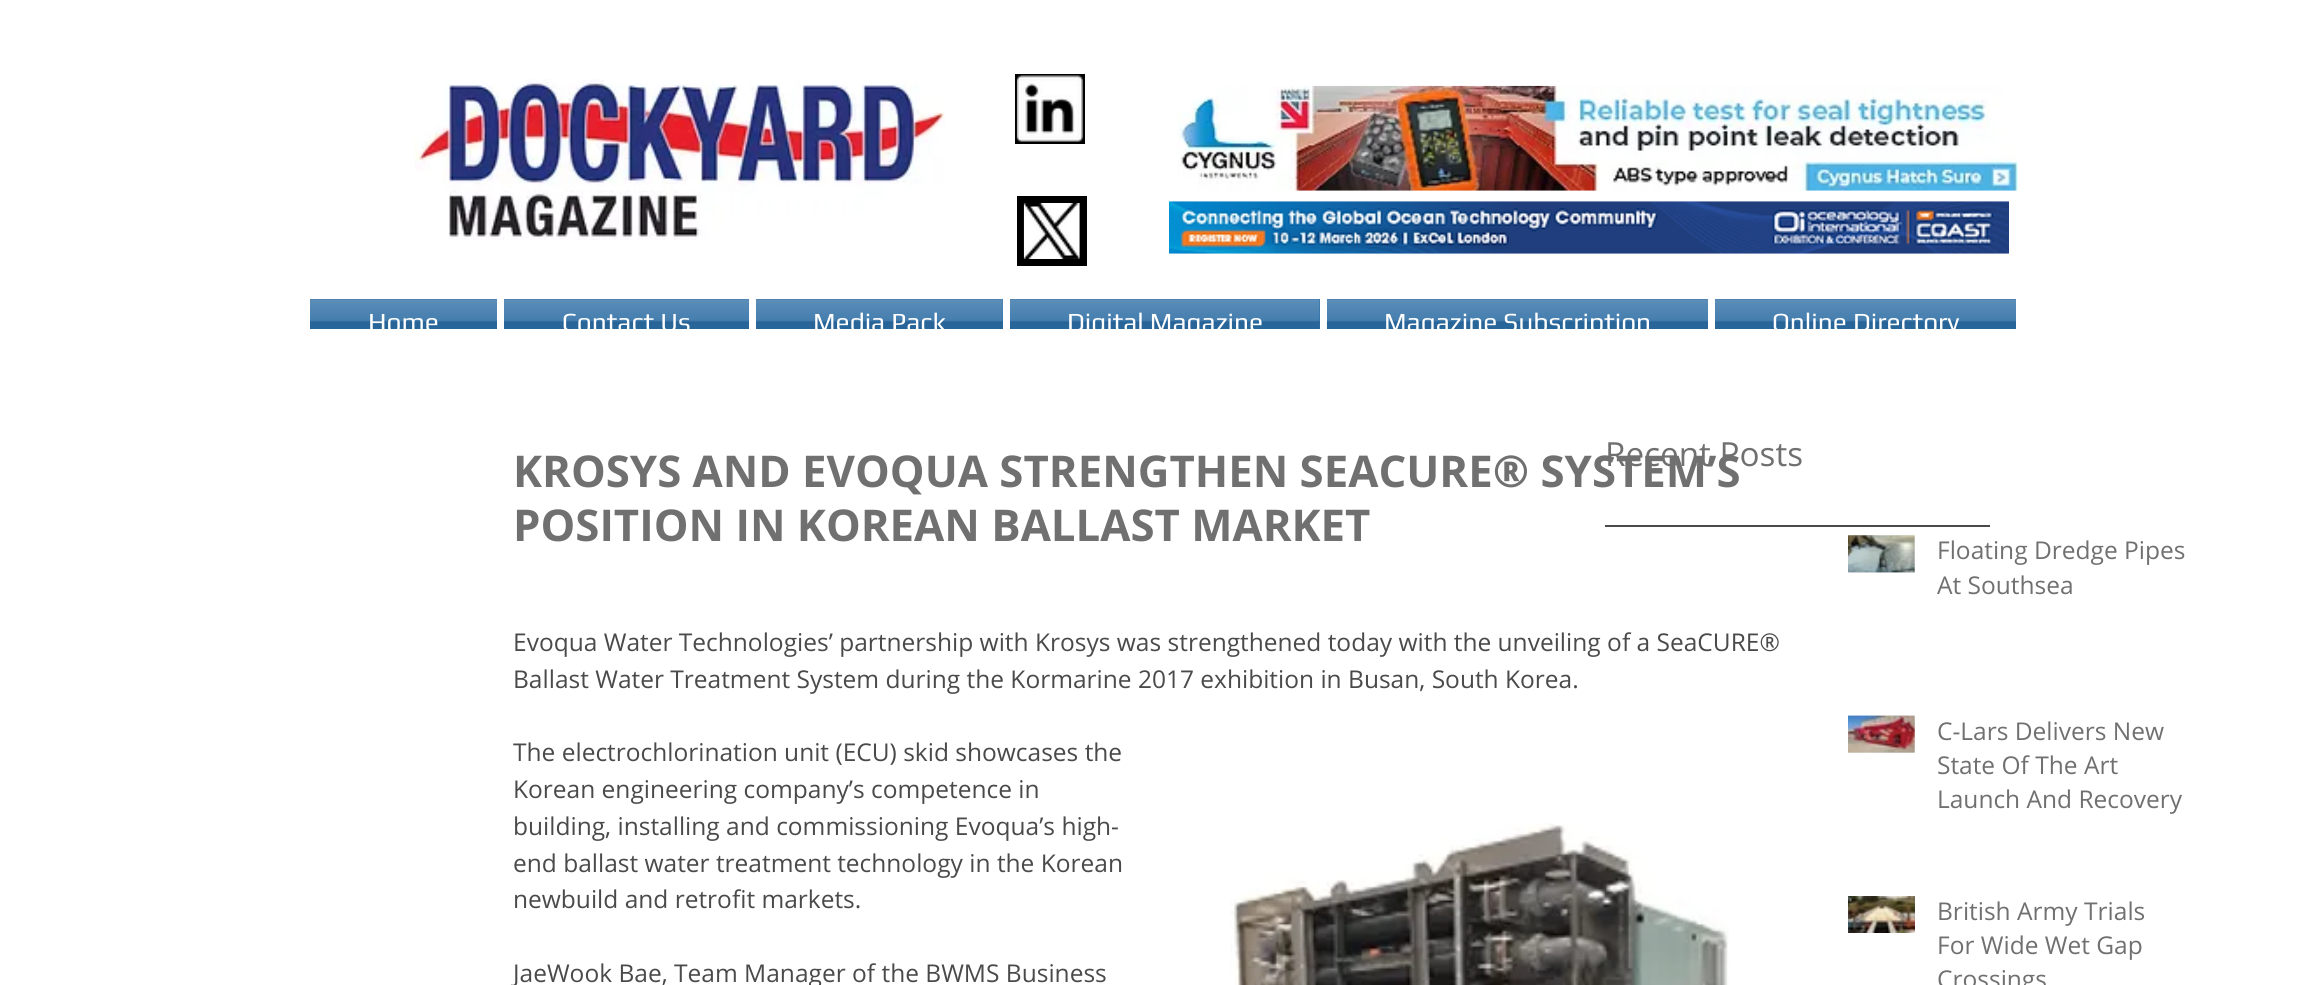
import math
import cairocffi as cairo

surface = cairo.ImageSurface(cairo.FORMAT_RGB24, 2319, 985)
ctx = cairo.Context(surface)
options = cairo.FontOptions()
options.set_hint_metrics(cairo.HINT_METRICS_OFF)
options.set_hint_style(cairo.HINT_STYLE_NONE)
ctx.set_font_options(options)
ctx.set_miter_limit(4)


def rgb(r, g, b):
    ctx.set_source_rgb(r / 255, g / 255, b / 255)


def face(family, size, italic, bold):
    ctx.select_font_face(family, cairo.FONT_SLANT_ITALIC if italic else cairo.FONT_SLANT_NORMAL, cairo.FONT_WEIGHT_BOLD if bold else cairo.FONT_WEIGHT_NORMAL)
    ctx.set_font_size(size)


def label(x, y, s):
    ctx.move_to(x, y)
    ctx.show_text(s)


def rect(x, y, w, h):
    ctx.rectangle(x, y, w, h)
    ctx.fill()


def image(path, x, y, w, h):
    ctx.save()
    ctx.set_source_surface(cairo.ImageSurface.create_from_png(path), x, y)
    ctx.rectangle(x, y, w, h)
    ctx.fill()
    ctx.restore()


rgb(255, 255, 255)
ctx.paint()
image('image0.png', 414, 79, 531, 161)
rgb(0, 0, 0)
rect(1015, 74, 70, 70)
image('image1.png', 1016, 75, 68, 67)
image('image2.png', 1177, 85, 841, 106)
rect(1017, 196, 70, 70)
image('image3.png', 1023, 203, 57, 56)
image('image4.png', 1169, 201, 840, 53)
rgb(43, 108, 163)
rect(310, 299, 187, 30)
image('image5.png', 310, 299, 187, 30)
face('Play', 26.25, 0, 0)
rgb(255, 255, 255)
label(368, 331, 'Home')
rgb(43, 108, 163)
rect(504, 299, 245, 30)
image('image6.png', 504, 299, 245, 30)
rgb(255, 255, 255)
label(562, 331, 'Contact Us')
rgb(43, 108, 163)
rect(756, 299, 247, 30)
image('image7.png', 756, 299, 247, 30)
rgb(255, 255, 255)
label(813, 331, 'Media Pack')
rgb(43, 108, 163)
rect(1010, 299, 310, 30)
image('image8.png', 1010, 299, 310, 30)
rgb(255, 255, 255)
label(1067, 331, 'Digital Magazine')
rgb(43, 108, 163)
rect(1327, 299, 381, 30)
image('image9.png', 1326, 299, 382, 30)
rgb(255, 255, 255)
label(1384, 331, 'Magazine Subscription')
rgb(43, 108, 163)
rect(1715, 299, 301, 30)
image('image10.png', 1715, 299, 301, 30)
rgb(255, 255, 255)
label(1772, 331, 'Online Directory')
face('Open Sans', 43.75, 0, 1)
rgb(113, 112, 112)
label(513, 487, 'KROSYS AND EVOQUA STRENGTHEN SEACURE® SYSTEM’S')
face('Open Sans', 33.25, 0, 0)
label(1605, 466, 'Recent Posts')
face('Open Sans', 43.75, 0, 1)
label(513, 541, 'POSITION IN KOREAN BALLAST MARKET')
face('Open Sans', 24.5, 0, 0)
rgb(74, 74, 74)
label(513, 651, 'Evoqua Water Technologies’ partnership with Krosys was strengthened today with the unveiling of a SeaCURE®')
label(513, 688, 'Ballast Water Treatment System during the Kormarine 2017 exhibition in Busan, South Korea.')
label(513, 761, 'The electrochlorination unit (ECU) skid showcases the')
label(513, 798, 'Korean engineering company’s competence in')
label(513, 835, 'building, installing and commissioning Evoqua’s high-')
label(513, 872, 'end ballast water treatment technology in the Korean')
label(513, 908, 'newbuild and retrofit markets.')
image('image11.png', 1230, 823, 499, 162)
label(513, 982, 'JaeWook Bae, Team Manager of the BWMS Business')
rect(1605, 525, 385, 2)
image('image12.png', 1848, 535, 67, 38)
image('image13.png', 1848, 535, 67, 38)
rgb(113, 112, 112)
label(1937, 559, 'Floating Dredge Pipes')
label(1937, 594, 'At Southsea')
image('image14.png', 1848, 715, 67, 38)
image('image15.png', 1848, 715, 67, 38)
label(1937, 740, 'C-Lars Delivers New')
label(1937, 774, 'State Of The Art')
label(1937, 808, 'Launch And Recovery')
image('image16.png', 1848, 896, 67, 37)
label(1937, 920, 'British Army Trials')
label(1937, 954, 'For Wide Wet Gap')
label(1937, 988, 'Crossings')
surface.write_to_png('render.png')
